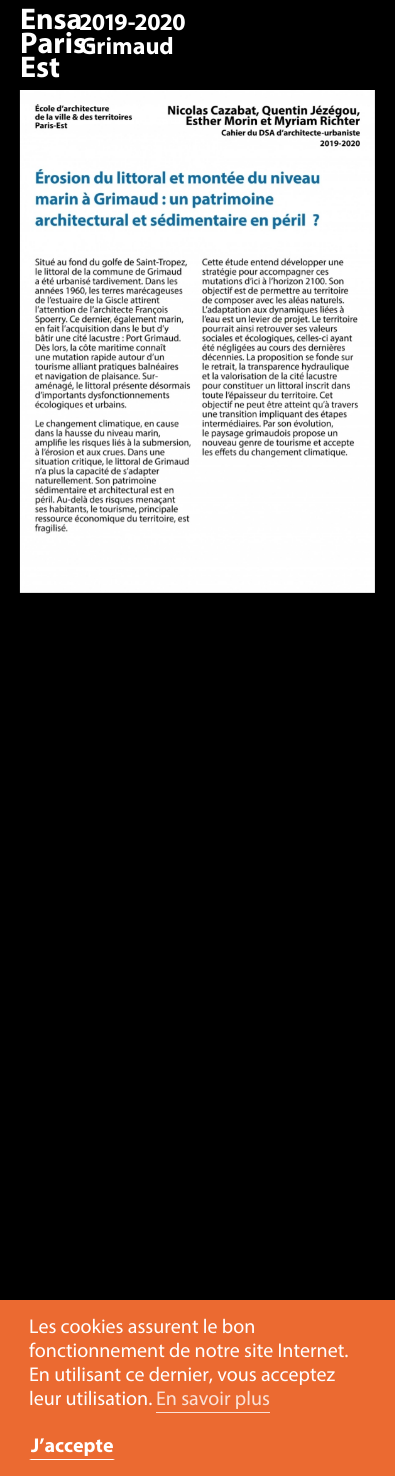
import math
import cairocffi as cairo

surface = cairo.ImageSurface(cairo.FORMAT_RGB24, 395, 1476)
ctx = cairo.Context(surface)
options = cairo.FontOptions()
options.set_hint_metrics(cairo.HINT_METRICS_OFF)
options.set_hint_style(cairo.HINT_STYLE_NONE)
ctx.set_font_options(options)
ctx.set_miter_limit(4)


def rgb(r, g, b):
    ctx.set_source_rgb(r / 255, g / 255, b / 255)


def face(family, size, italic, bold):
    ctx.select_font_face(family, cairo.FONT_SLANT_ITALIC if italic else cairo.FONT_SLANT_NORMAL, cairo.FONT_WEIGHT_BOLD if bold else cairo.FONT_WEIGHT_NORMAL)
    ctx.set_font_size(size)


def label(x, y, s):
    ctx.move_to(x, y)
    ctx.show_text(s)


def rect(x, y, w, h):
    ctx.rectangle(x, y, w, h)
    ctx.fill()


def image(path, x, y, w, h):
    ctx.save()
    ctx.set_source_surface(cairo.ImageSurface.create_from_png(path), x, y)
    ctx.rectangle(x, y, w, h)
    ctx.fill()
    ctx.restore()


rgb(0, 0, 0)
ctx.paint()
face('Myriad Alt', 24, 0, 1)
rgb(255, 255, 255)
label(80, 30, '2019-2020')
face('Myriad', 30, 0, 1)
label(20, 29, 'Ensa')
face('Myriad', 24, 0, 1)
label(80, 54, 'Grimaud')
face('Myriad', 30, 0, 1)
label(20, 53, 'Paris-')
label(20, 77, 'Est')
image('image0.png', 19, 90, 356, 503)
rgb(235, 106, 49)
rect(0, 1300, 395, 176)
face('Myriad', 20, 0, 0)
rgb(255, 255, 255)
label(29, 1333, 'Les cookies assurent le bon')
label(29, 1357, 'fonctionnement de notre site Internet.')
label(29, 1381, 'En utilisant ce dernier, vous acceptez')
label(29, 1405, 'leur utilisation.')
rgb(251, 225, 214)
rect(156, 1412, 114, 1)
label(156, 1405, 'En savoir plus')
rgb(255, 255, 255)
ctx.new_path()
ctx.move_to(115, 1460)
ctx.line_to(29, 1460)
ctx.line_to(31, 1459)
ctx.line_to(113, 1459)
ctx.close_path()
ctx.fill()
face('Myriad', 20, 0, 1)
label(31, 1452, 'J’accepte')
surface.write_to_png('render.png')
